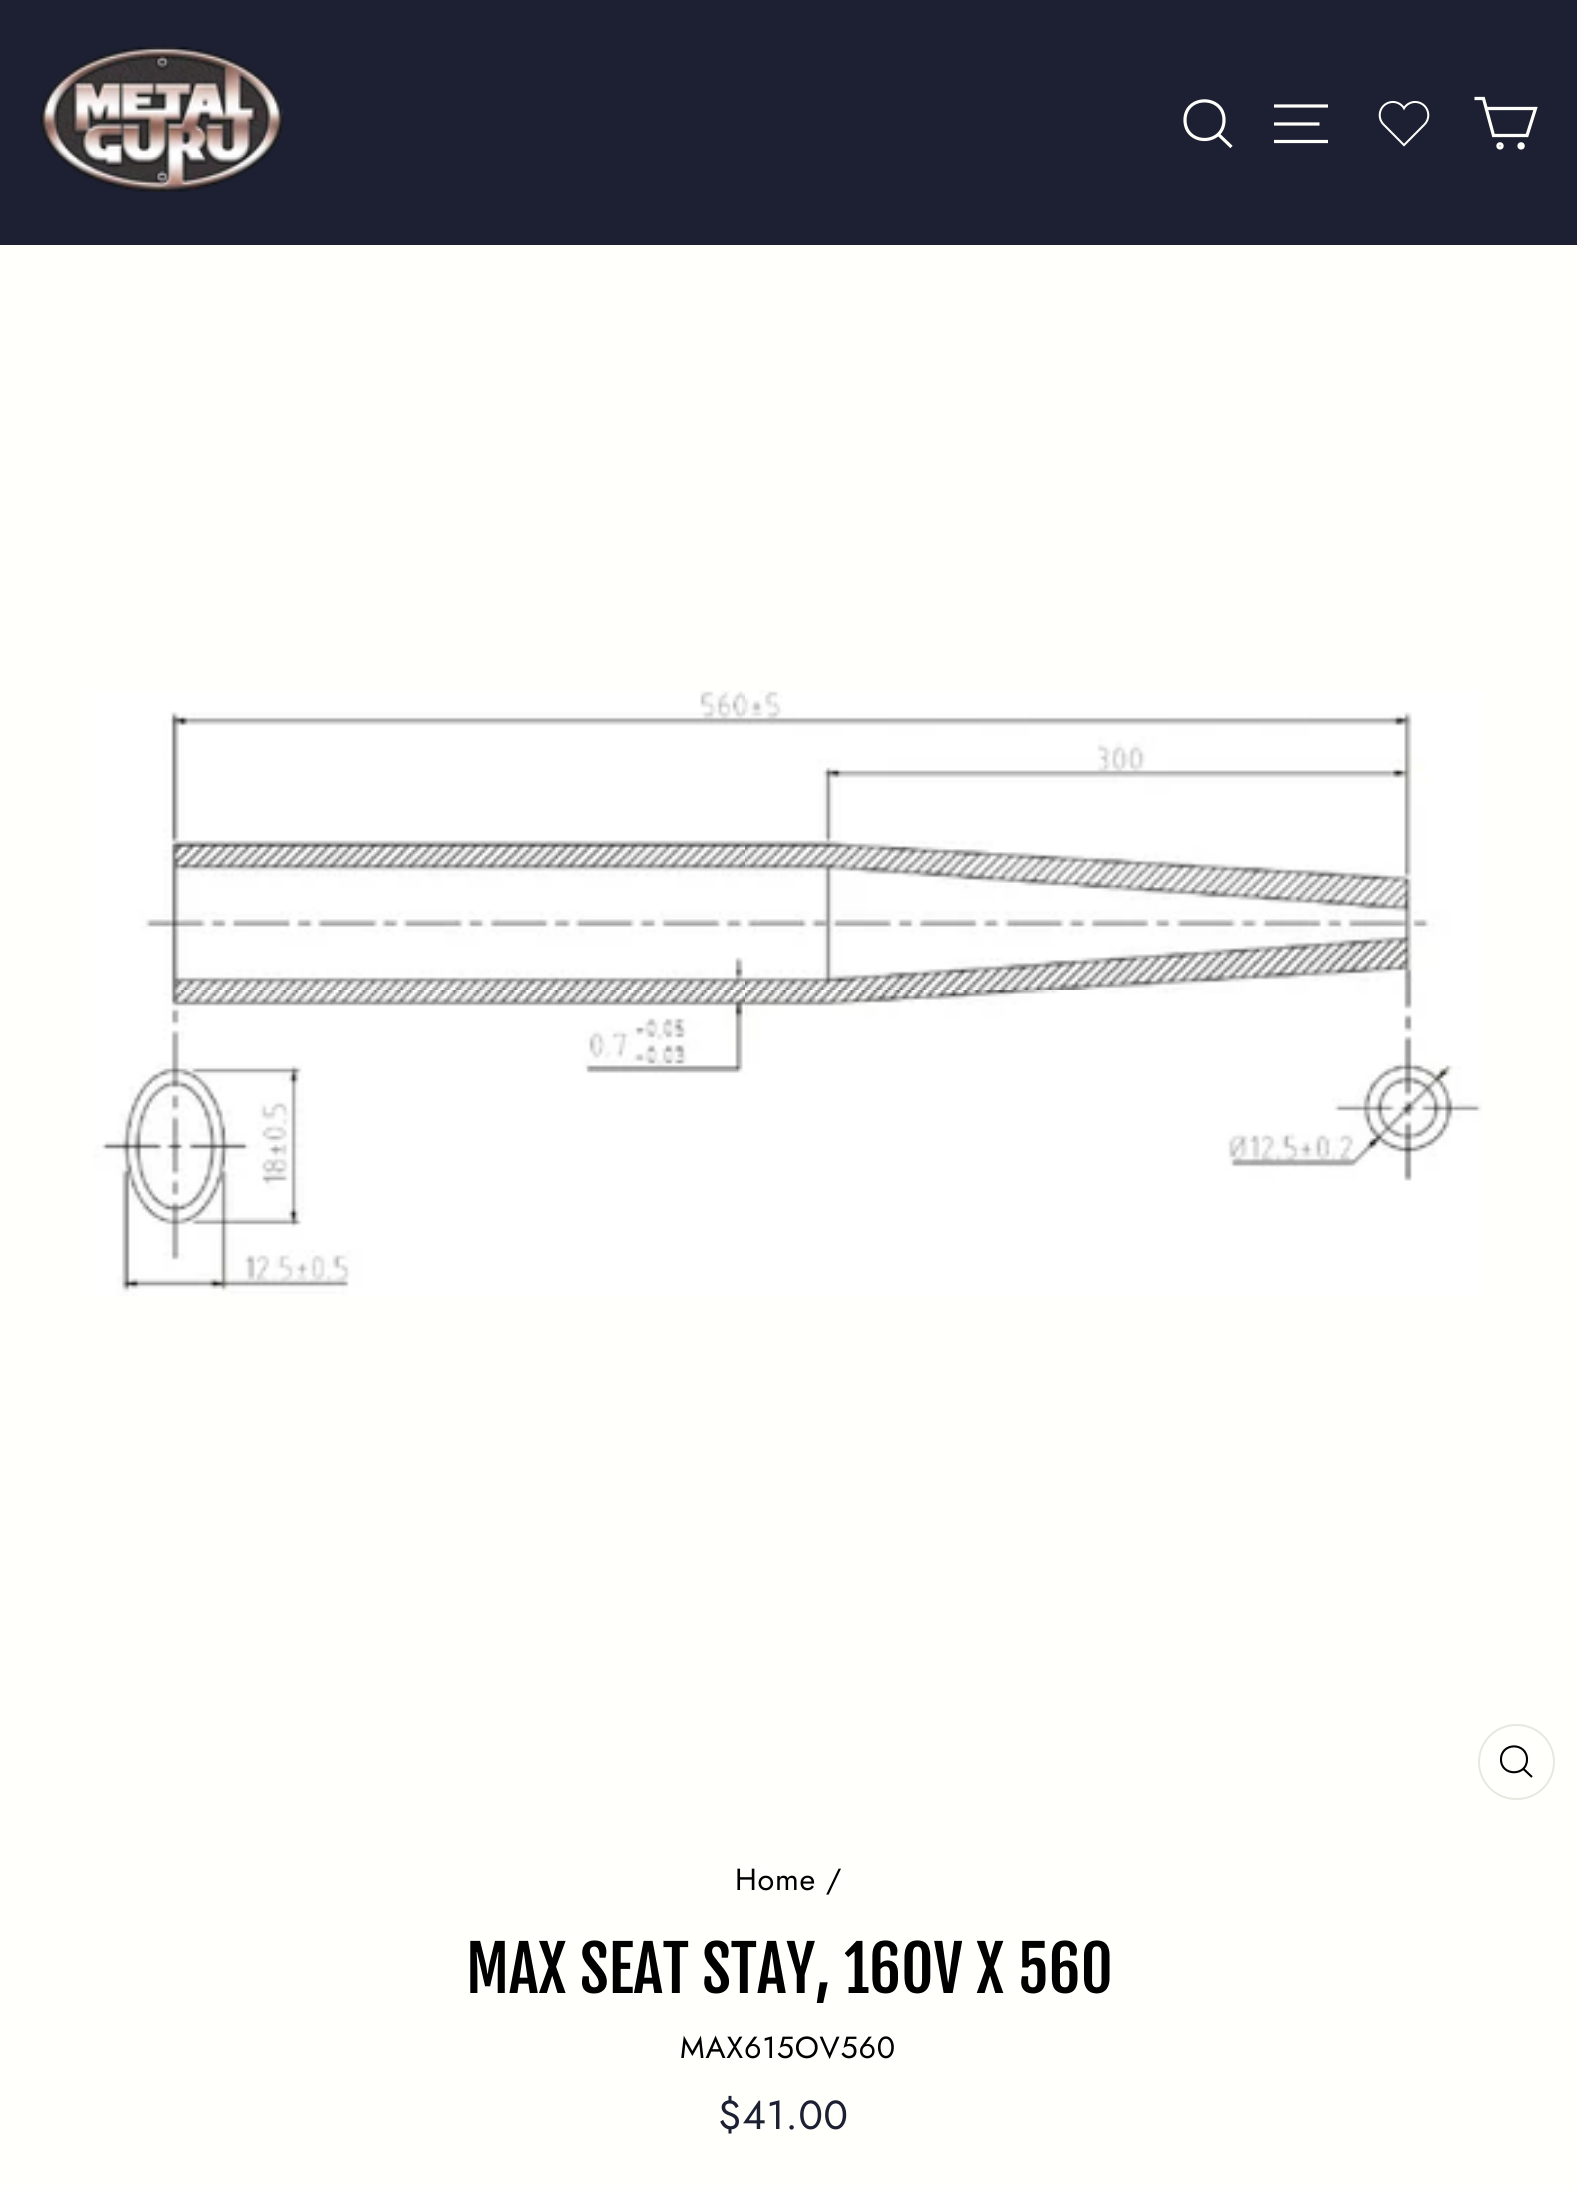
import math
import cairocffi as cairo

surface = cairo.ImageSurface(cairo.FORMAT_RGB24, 1577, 2191)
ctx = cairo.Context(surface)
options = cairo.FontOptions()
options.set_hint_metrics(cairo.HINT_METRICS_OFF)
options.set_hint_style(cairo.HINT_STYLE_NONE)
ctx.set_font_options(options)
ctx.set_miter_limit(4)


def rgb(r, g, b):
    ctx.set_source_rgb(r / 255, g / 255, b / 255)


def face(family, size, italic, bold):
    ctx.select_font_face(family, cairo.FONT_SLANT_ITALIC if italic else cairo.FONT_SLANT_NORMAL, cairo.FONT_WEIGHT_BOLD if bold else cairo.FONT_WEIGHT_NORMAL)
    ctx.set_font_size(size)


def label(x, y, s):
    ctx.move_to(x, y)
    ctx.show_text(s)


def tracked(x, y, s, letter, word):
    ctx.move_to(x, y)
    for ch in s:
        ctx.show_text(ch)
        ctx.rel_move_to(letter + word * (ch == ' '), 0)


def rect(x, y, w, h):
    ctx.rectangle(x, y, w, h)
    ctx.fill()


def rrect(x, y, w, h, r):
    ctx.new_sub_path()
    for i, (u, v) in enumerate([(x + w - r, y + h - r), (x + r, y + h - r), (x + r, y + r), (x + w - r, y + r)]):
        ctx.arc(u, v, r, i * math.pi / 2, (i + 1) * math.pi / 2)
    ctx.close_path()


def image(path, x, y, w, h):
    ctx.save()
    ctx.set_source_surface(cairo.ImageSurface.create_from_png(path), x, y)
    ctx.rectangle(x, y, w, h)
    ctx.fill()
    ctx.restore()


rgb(255, 255, 252)
ctx.paint()
rgb(28, 32, 50)
rect(0, 0, 1577, 245)
image('image0.png', 40, 45, 244, 147)
ctx.new_path()
ctx.move_to(1224, 120)
ctx.curve_to(1224, 146, 1185, 146, 1185, 120)
ctx.curve_to(1185, 94.5, 1224, 94.5, 1224, 120)
ctx.close_path()
ctx.move_to(1231.5, 147)
ctx.line_to(1218.5, 134.5)
rgb(255, 255, 252)
ctx.set_line_width(3.2)
ctx.stroke()
ctx.new_path()
ctx.move_to(1274, 106)
ctx.line_to(1328, 106)
ctx.move_to(1274, 124)
ctx.line_to(1319.5, 124)
ctx.move_to(1274, 141.5)
ctx.line_to(1328, 141.5)
ctx.stroke()
image('image1.png', 1378, 100, 52, 47)
ctx.new_path()
ctx.move_to(1486.5, 108.5)
ctx.line_to(1535.5, 108.5)
ctx.line_to(1527, 135.5)
ctx.line_to(1493.5, 135.5)
ctx.line_to(1483.5, 98.5)
ctx.line_to(1474.5, 98.5)
ctx.stroke()
ctx.arc(1500, 145.9, 2.1, 0, 2 * math.pi)
ctx.stroke()
ctx.arc(1521.1, 145.9, 2.1, 0, 2 * math.pi)
ctx.fill_preserve()
ctx.stroke()
image('image2.png', 94, 690, 1388, 606)
rrect(1479, 1725, 75, 74, 37)
rgb(232, 232, 225)
ctx.set_line_width(2)
ctx.stroke()
ctx.new_path()
ctx.move_to(1527, 1759.5)
ctx.curve_to(1527, 1776.5, 1501, 1776.5, 1501, 1759.5)
ctx.curve_to(1501, 1742, 1527, 1742, 1527, 1759.5)
ctx.close_path()
ctx.move_to(1532, 1777)
ctx.line_to(1523.5, 1769)
rgb(0, 0, 0)
ctx.set_line_width(2.1)
ctx.stroke()
face('Jost', 30.5, 0, 0)
tracked(735, 1890, 'Home /', 0.75, 0)
face('Fjalla One', 62.5, 0, 0)
label(466, 1993, 'MAX SEAT STAY, 16OV X 560')
face('Jost', 30.5, 0, 0)
tracked(680, 2058, 'MAX615OV560', 0.75, 0)
face('Jost', 40.5, 0, 0)
rgb(28, 32, 50)
tracked(718, 2129, '$41.00', 0.75, 0)
surface.write_to_png('render.png')
